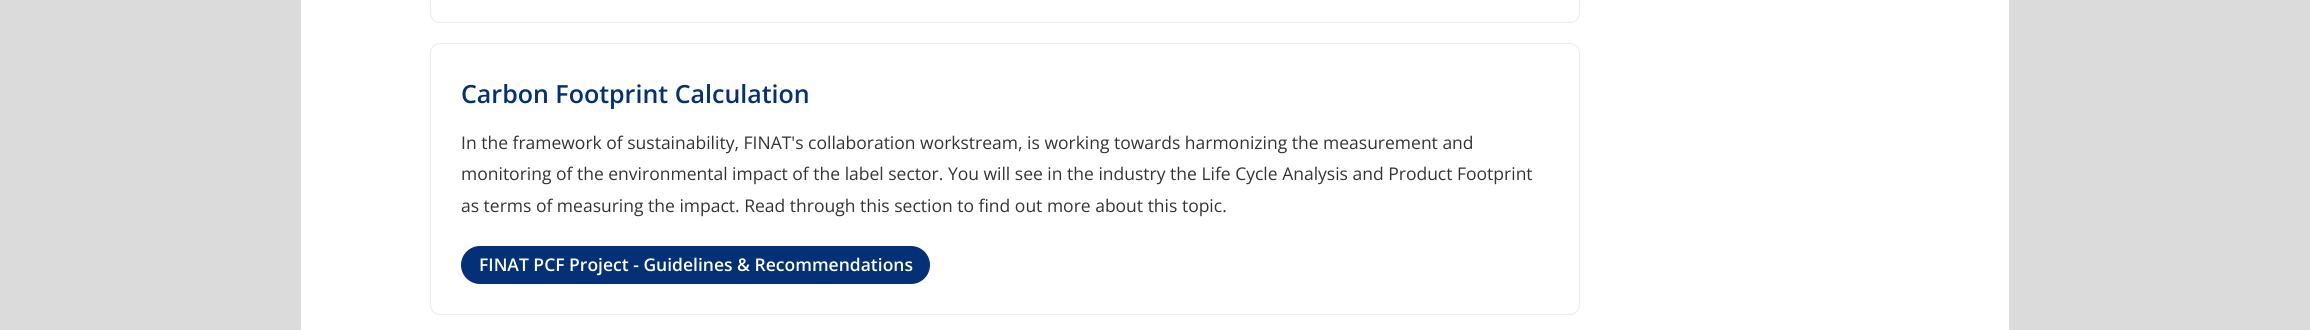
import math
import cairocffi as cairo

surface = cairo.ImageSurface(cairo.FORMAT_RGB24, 2310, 330)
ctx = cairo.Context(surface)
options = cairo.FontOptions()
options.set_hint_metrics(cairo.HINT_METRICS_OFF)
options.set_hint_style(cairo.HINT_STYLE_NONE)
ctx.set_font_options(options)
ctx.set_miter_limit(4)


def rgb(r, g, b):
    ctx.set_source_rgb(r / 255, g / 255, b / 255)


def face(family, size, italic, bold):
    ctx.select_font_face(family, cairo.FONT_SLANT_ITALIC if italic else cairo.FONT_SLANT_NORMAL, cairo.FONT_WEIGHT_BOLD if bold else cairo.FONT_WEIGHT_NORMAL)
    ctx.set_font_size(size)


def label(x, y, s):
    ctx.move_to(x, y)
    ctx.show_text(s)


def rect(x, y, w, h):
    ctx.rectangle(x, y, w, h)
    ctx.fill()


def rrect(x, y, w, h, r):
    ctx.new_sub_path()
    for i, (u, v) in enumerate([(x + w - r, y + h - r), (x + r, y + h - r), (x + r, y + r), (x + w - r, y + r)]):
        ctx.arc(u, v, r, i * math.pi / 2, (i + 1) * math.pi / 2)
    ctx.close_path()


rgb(219, 219, 219)
ctx.paint()
rgb(255, 255, 255)
rect(301, 0, 1708, 330)
rrect(430.5, -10.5, 1149, 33, 9.5)
rgb(235, 235, 235)
ctx.set_line_width(1)
ctx.stroke()
rrect(430.5, 43.5, 1149, 271, 9.5)
ctx.stroke()
face('Open Sans SemiBold', 25, 0, 0)
rgb(3, 48, 118)
label(461, 103, 'Carbon Footprint Calculation')
face('Open Sans', 17.5, 0, 0)
rgb(53, 53, 53)
label(461, 149, 'In the framework of sustainability, FINAT\'s collaboration workstream, is working towards harmonizing the measurement and')
label(461, 180, 'monitoring of the environmental impact of the label sector. You will see in the industry the Life Cycle Analysis and Product Footprint')
label(461, 212, 'as terms of measuring the impact. Read through this section to find out more about this topic.')
rgb(3, 48, 118)
rrect(461, 246, 469, 38, 19)
ctx.fill()
face('Open Sans SemiBold', 17.5, 0, 0)
rgb(255, 255, 255)
label(479, 271, 'FINAT PCF Project - Guidelines & Recommendations')
surface.write_to_png('render.png')
